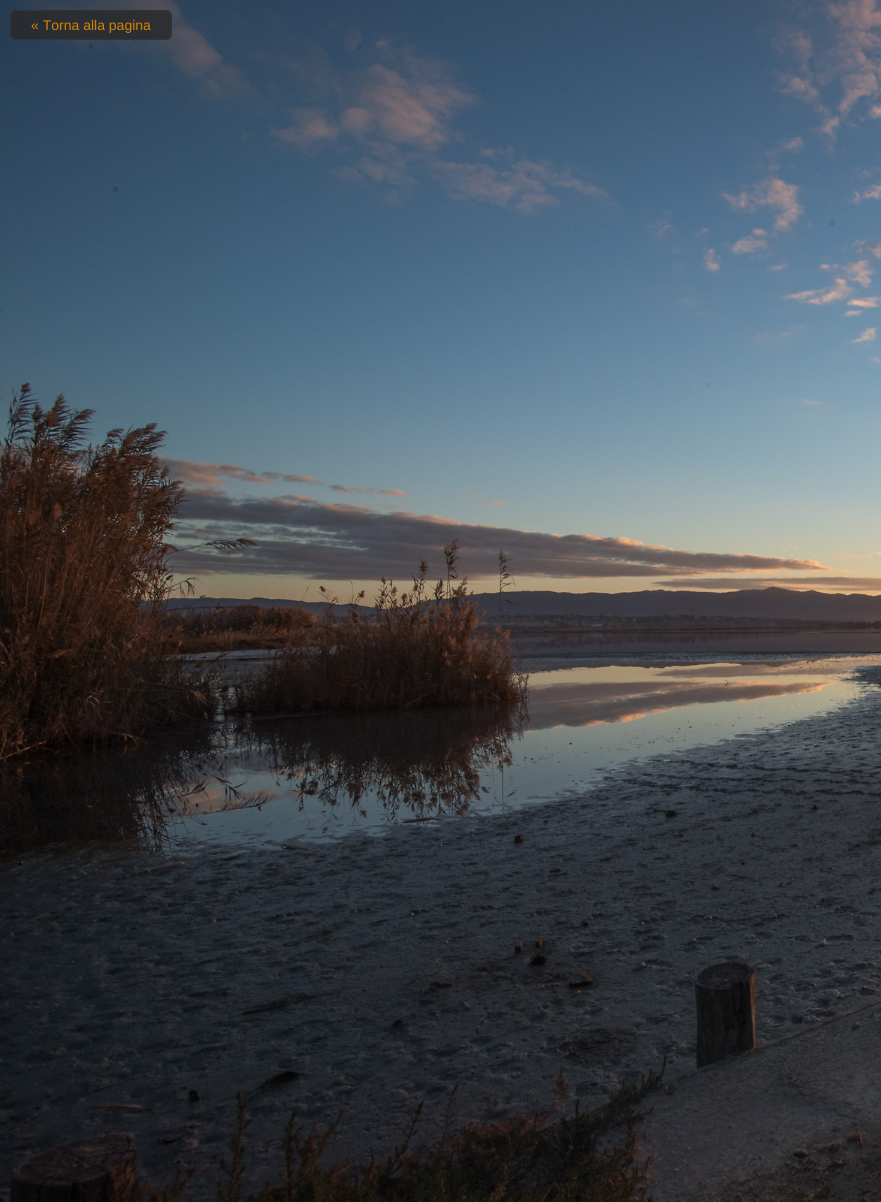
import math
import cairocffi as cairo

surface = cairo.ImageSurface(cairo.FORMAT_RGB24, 881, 1202)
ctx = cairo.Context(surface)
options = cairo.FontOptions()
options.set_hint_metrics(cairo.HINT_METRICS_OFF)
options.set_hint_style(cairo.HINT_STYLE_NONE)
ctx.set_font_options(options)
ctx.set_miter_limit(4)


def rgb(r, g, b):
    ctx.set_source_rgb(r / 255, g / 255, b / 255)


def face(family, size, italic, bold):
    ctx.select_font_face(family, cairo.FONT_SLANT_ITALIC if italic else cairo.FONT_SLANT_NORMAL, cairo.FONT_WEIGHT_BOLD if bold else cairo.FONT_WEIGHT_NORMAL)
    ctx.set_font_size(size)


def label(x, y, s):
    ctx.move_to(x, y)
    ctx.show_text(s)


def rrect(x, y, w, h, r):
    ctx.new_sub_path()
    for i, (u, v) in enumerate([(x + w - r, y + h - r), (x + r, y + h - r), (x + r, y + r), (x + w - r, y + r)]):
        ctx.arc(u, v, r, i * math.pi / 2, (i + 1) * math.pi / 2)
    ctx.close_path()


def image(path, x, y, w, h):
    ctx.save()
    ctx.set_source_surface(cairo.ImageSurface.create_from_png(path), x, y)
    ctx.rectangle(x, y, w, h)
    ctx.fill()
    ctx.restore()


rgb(255, 255, 255)
ctx.paint()
image('image0.png', 0, 0, 881, 1202)
ctx.set_source_rgba(0.161, 0.161, 0.161, 0.8)
rrect(10, 10, 162, 30, 6)
ctx.fill()
rrect(10.5, 10.5, 161, 29, 5.5)
ctx.set_source_rgba(0.208, 0.216, 0.208, 0.8)
ctx.set_line_width(1)
ctx.stroke()
face('Liberation Sans', 14, 0, 0)
rgb(210, 130, 10)
label(31, 30, '« Torna alla pagina')
surface.write_to_png('render.png')
